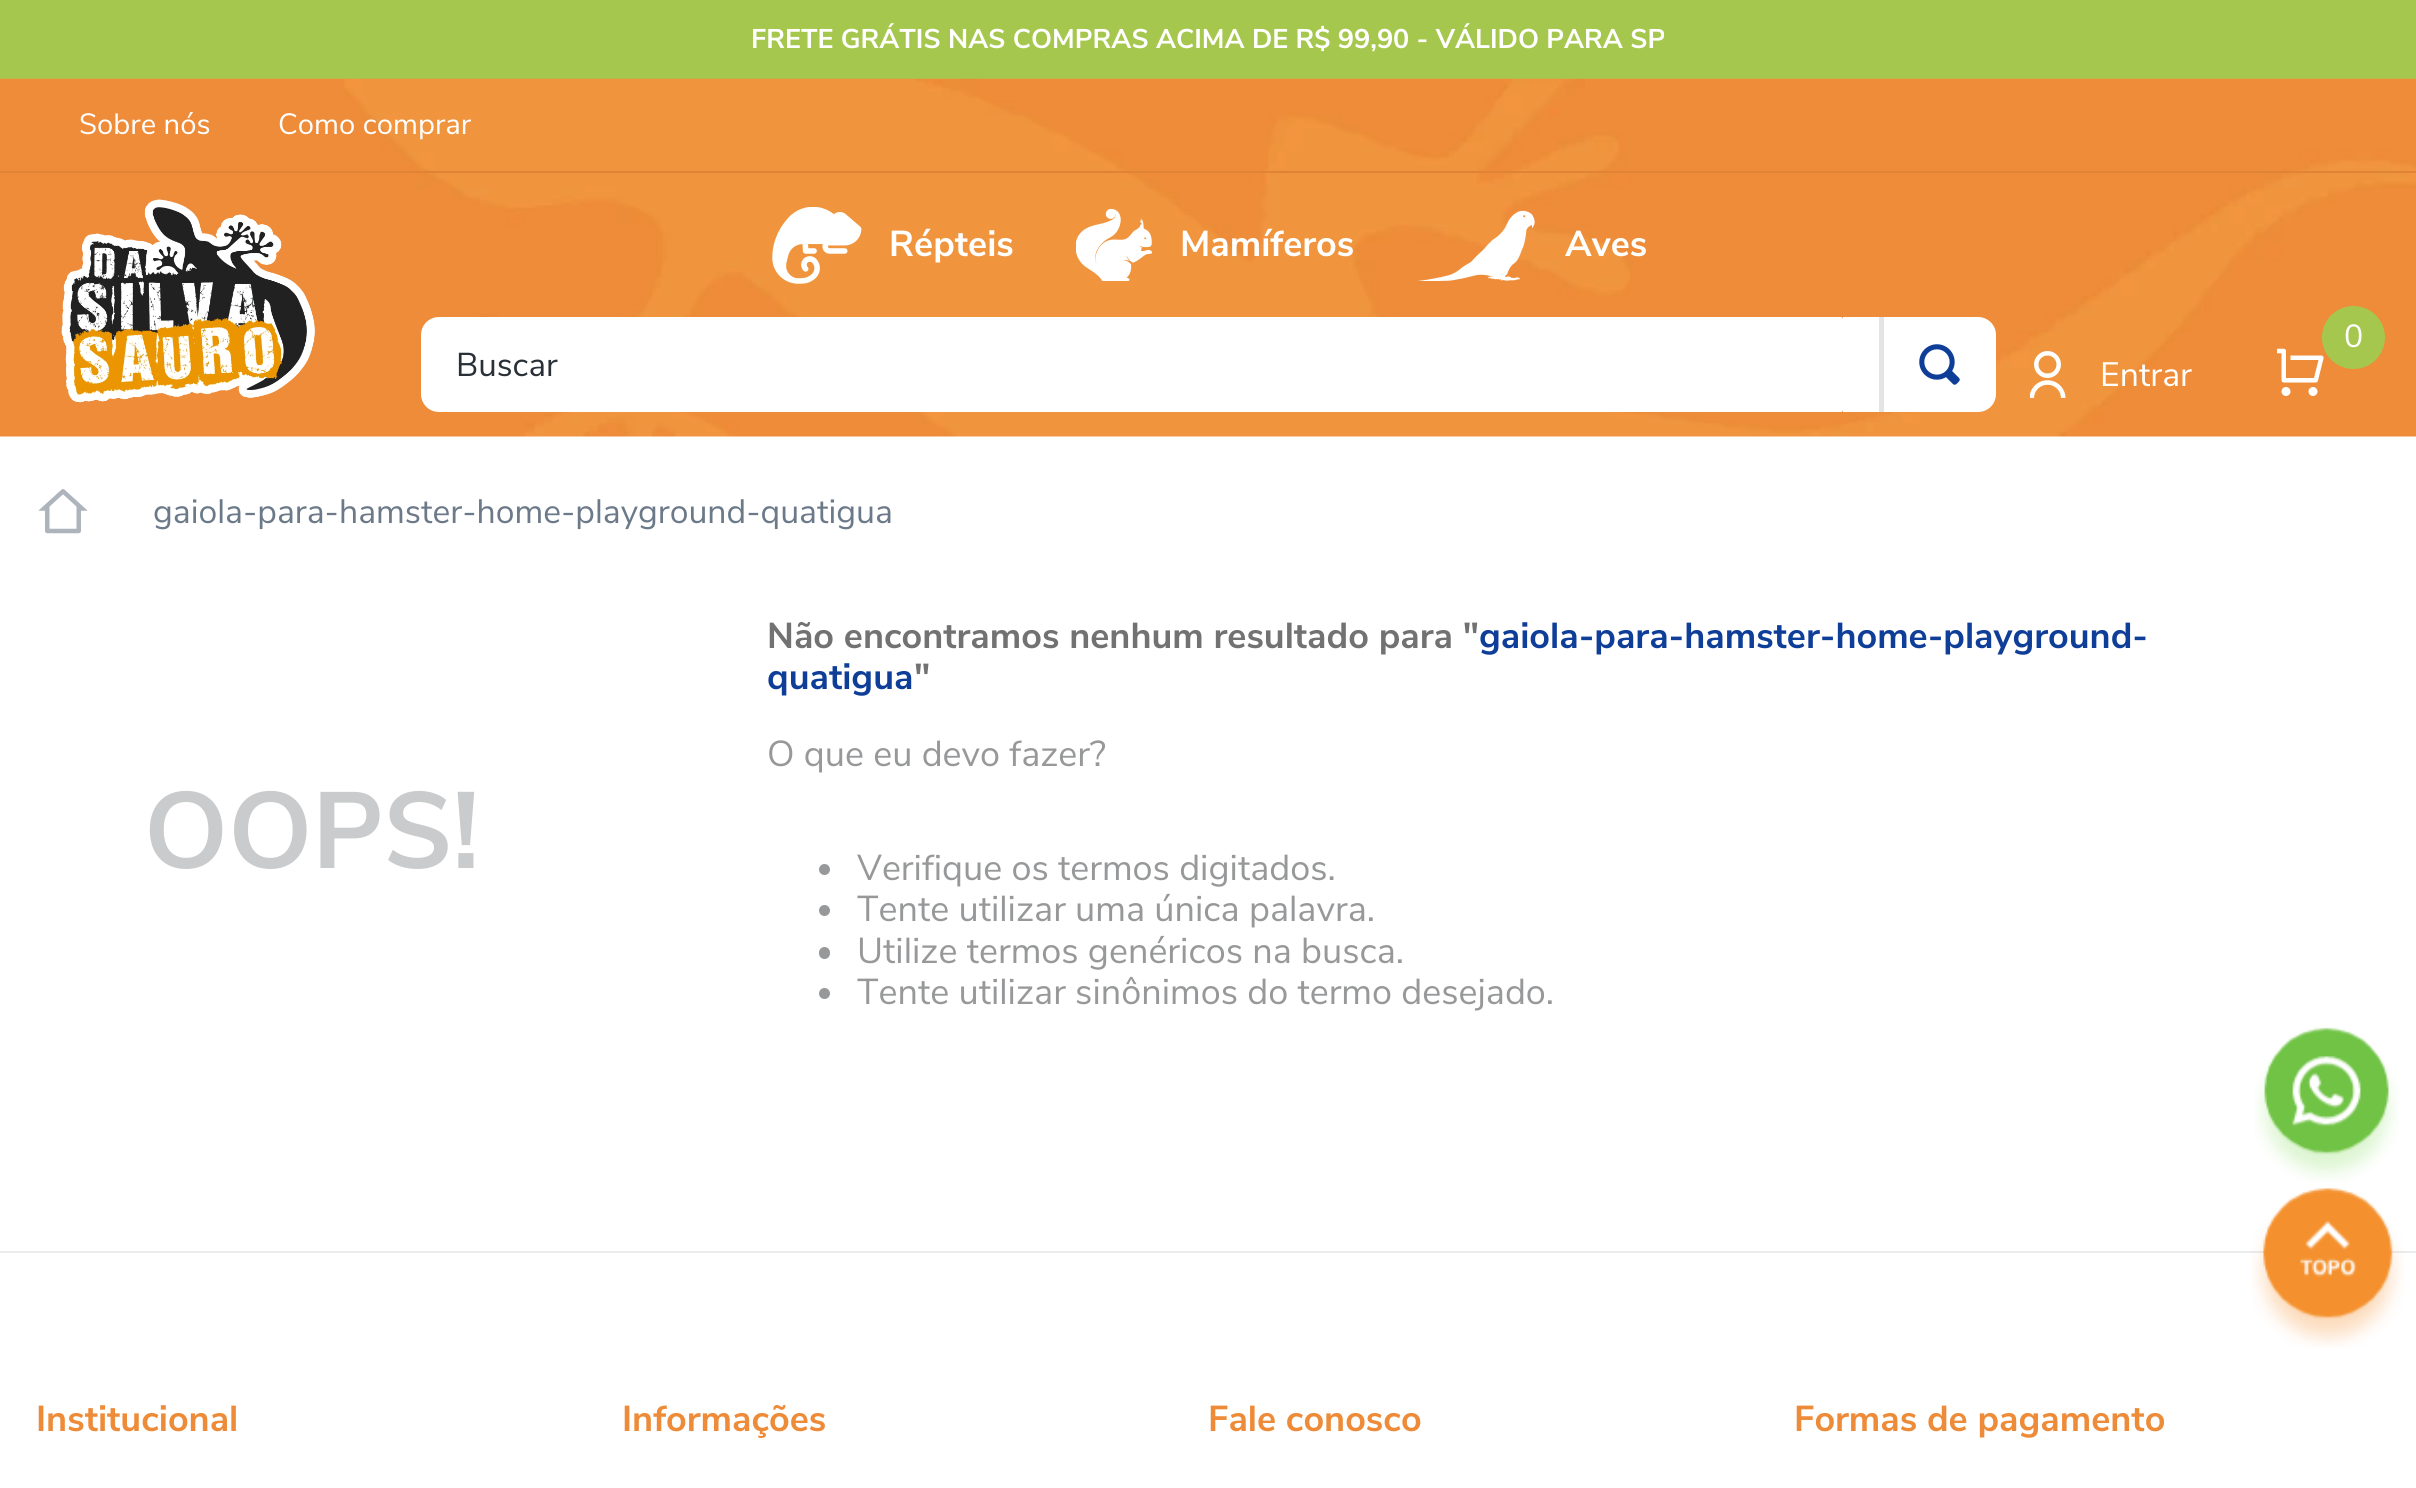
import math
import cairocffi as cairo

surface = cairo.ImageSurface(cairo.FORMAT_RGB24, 2416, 1488)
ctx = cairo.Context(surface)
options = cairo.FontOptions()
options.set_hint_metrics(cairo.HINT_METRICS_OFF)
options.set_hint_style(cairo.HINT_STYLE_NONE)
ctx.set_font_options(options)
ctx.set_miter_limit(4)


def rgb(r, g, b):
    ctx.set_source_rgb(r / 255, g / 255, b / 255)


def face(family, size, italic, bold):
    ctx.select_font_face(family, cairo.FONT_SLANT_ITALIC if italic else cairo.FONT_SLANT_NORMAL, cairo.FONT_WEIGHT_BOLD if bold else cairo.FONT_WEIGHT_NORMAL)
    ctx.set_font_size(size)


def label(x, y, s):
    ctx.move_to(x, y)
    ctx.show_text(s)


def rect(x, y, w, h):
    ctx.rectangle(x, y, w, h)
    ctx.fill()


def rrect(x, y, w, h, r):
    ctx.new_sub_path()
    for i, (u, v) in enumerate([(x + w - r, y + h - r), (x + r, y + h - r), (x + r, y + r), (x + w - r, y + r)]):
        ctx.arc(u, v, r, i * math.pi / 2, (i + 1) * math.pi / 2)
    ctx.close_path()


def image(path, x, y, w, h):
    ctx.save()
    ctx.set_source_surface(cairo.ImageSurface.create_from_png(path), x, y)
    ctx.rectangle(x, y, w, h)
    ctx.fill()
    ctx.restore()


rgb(255, 255, 255)
ctx.paint()
rgb(166, 199, 78)
rect(0, 0, 2416, 79)
face('Nunito Sans', 27, 0, 1)
rgb(255, 255, 255)
label(751, 48, 'FRETE GRÁTIS NAS COMPRAS ACIMA DE R$ 99,90 - VÁLIDO PARA SP')
image('image0.png', 0, 78, 2416, 359)
rgb(224, 131, 53)
rect(0, 171, 2416, 2)
face('Nunito Sans', 29.25, 0, 0)
rgb(255, 255, 255)
label(79, 134, 'Sobre nós')
label(278, 134, 'Como comprar')
image('image1.png', 61, 199, 254, 204)
image('image2.png', 772, 207, 90, 77)
face('Nunito Sans', 36, 0, 1)
label(889, 256, 'Répteis')
image('image3.png', 1076, 209, 76, 72)
label(1180, 256, 'Mamíferos')
image('image4.png', 1418, 210, 117, 71)
label(1565, 256, 'Aves')
ctx.new_path()
ctx.move_to(439, 317)
ctx.line_to(1841, 317)
ctx.curve_to(1842, 317, 1843, 318, 1843, 319)
ctx.line_to(1843, 410)
ctx.curve_to(1843, 411, 1842, 412, 1841, 412)
ctx.line_to(439, 412)
ctx.curve_to(429, 412, 421, 404, 421, 394)
ctx.line_to(421, 335)
ctx.curve_to(421, 325, 429, 317, 439, 317)
ctx.close_path()
ctx.fill()
face('Nunito Sans', 33, 0, 0)
rgb(42, 48, 56)
label(456, 376, 'Buscar')
rgb(255, 255, 255)
ctx.new_path()
ctx.move_to(1843, 317)
ctx.line_to(1978, 317)
ctx.curve_to(1988, 317, 1996, 325, 1996, 335)
ctx.line_to(1996, 394)
ctx.curve_to(1996, 404, 1988, 412, 1978, 412)
ctx.line_to(1843, 412)
ctx.close_path()
ctx.fill()
rgb(227, 228, 230)
rect(1879, 317, 5, 95)
image('image5.png', 1919, 344, 41, 41)
image('image6.png', 2277, 348, 47, 48)
rgb(166, 199, 78)
ctx.arc(2353.5, 337.5, 31.5, 0, 2 * math.pi)
ctx.fill()
face('Nunito Sans', 32, 0, 0)
rgb(255, 255, 255)
label(2344, 347, '0')
image('image7.png', 2030, 351, 36, 47)
face('Nunito Sans', 33.75, 0, 0)
label(2100, 386, 'Entrar')
image('image8.png', 2254, 1027, 145, 155)
rgb(235, 235, 235)
rect(0, 1251, 2416, 2)
image('image9.png', 2252, 1188, 152, 160)
image('image10.png', 38, 489, 50, 45)
rgb(107, 121, 137)
label(153, 523, 'gaiola-para-hamster-home-playground-quatigua')
face('Nunito Sans', 108, 0, 1)
rgb(202, 203, 204)
label(144, 868, 'OOPS!')
face('Nunito Sans', 36, 0, 1)
rgb(114, 114, 115)
label(767, 648, 'Não encontramos nenhum resultado para "')
rgb(15, 62, 153)
label(1479, 648, 'gaiola-para-hamster-home-playground-')
label(767, 689, 'quatigua')
rgb(114, 114, 115)
label(914, 689, '"')
face('Nunito Sans', 36, 0, 0)
rgb(151, 152, 153)
label(767, 766, 'O que eu devo fazer?')
ctx.new_path()
ctx.arc(824.5, 869.5, 5.5, 0, 2 * math.pi)
ctx.fill()
label(857, 880, 'Verifique os termos digitados.')
ctx.new_path()
ctx.arc(824.5, 910.5, 5.5, 0, 2 * math.pi)
ctx.fill()
label(857, 921, 'Tente utilizar uma única palavra.')
rrect(819, 947, 11, 12, 5.5)
ctx.fill()
label(857, 963, 'Utilize termos genéricos na busca.')
ctx.new_path()
ctx.arc(824.5, 993.5, 5.5, 0, 2 * math.pi)
ctx.fill()
label(857, 1004, 'Tente utilizar sinônimos do termo desejado.')
face('Nunito Sans', 36, 0, 1)
rgb(237, 139, 57)
label(36, 1431, 'Institucional')
label(622, 1431, 'Informações')
label(1208, 1431, 'Fale conosco')
label(1794, 1431, 'Formas de pagamento')
surface.write_to_png('render.png')
